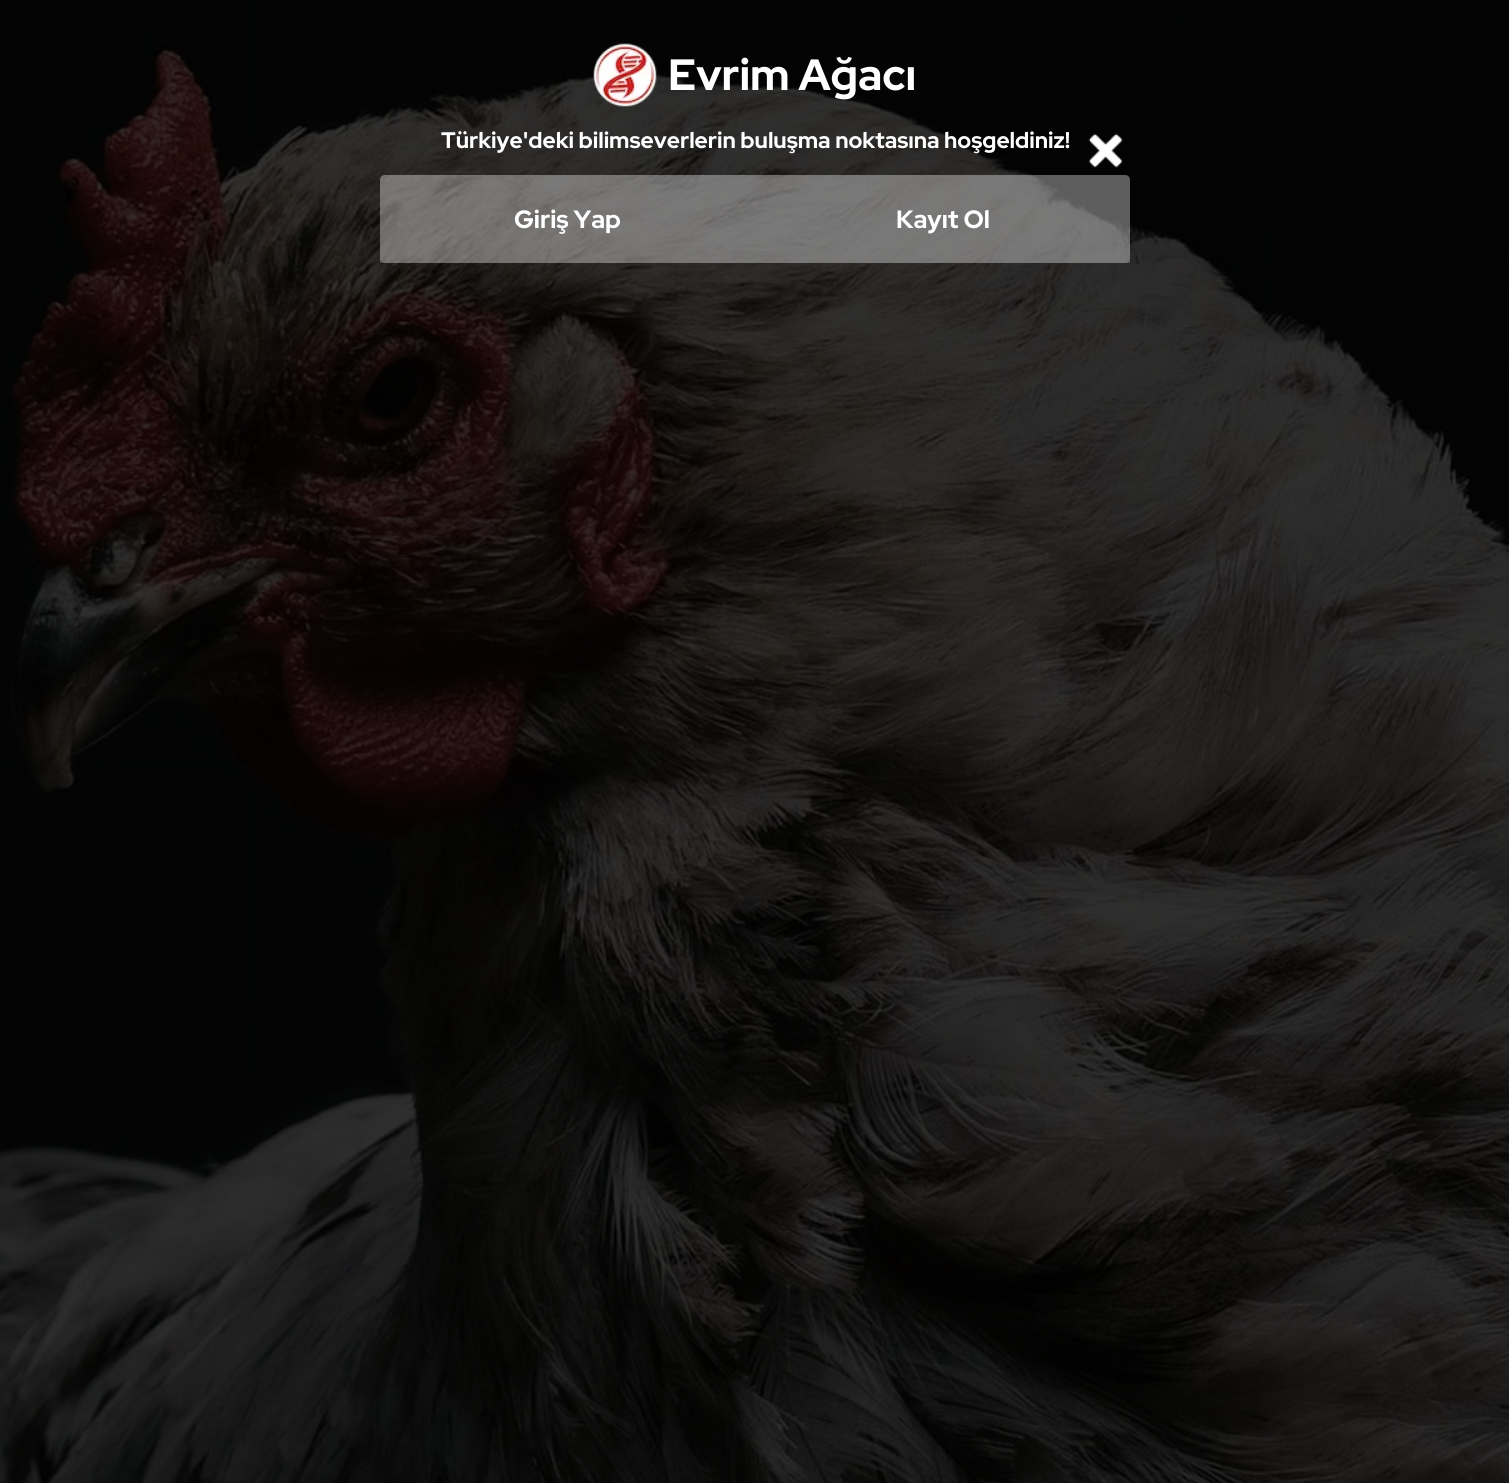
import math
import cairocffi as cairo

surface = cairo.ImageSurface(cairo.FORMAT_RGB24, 1509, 1483)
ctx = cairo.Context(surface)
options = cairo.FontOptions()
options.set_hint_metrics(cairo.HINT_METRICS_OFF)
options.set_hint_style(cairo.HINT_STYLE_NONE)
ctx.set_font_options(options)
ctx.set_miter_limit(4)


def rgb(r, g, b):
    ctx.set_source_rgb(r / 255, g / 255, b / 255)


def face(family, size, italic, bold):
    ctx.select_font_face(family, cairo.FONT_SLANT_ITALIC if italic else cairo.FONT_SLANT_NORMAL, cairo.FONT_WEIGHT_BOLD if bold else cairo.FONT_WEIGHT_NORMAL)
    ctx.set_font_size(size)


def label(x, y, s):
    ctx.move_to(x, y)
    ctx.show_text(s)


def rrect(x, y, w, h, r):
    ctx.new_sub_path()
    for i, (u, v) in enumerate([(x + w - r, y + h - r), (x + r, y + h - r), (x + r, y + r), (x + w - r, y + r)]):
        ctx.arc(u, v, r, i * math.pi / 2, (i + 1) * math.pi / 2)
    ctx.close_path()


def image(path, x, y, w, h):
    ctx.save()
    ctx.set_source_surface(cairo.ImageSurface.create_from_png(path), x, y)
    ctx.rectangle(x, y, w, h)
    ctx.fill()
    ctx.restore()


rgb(255, 255, 255)
ctx.paint()
image('image0.png', 0, 0, 1509, 1483)
image('image1.png', 593, 43, 64, 64)
face('Red Hat Display', 43.75, 0, 1)
rgb(255, 255, 255)
label(668, 90, 'Evrim Ağacı')
face('Red Hat Display', 22.5, 0, 1)
label(441, 148, 'Türkiye\'deki bilimseverlerin buluşma noktasına hoşgeldiniz!')
ctx.set_source_rgba(1, 1, 1, 0.2)
rrect(380, 175, 750, 88, 5)
ctx.fill()
image('image2.png', 1088, 133, 35, 35)
ctx.new_path()
ctx.move_to(385, 175)
ctx.line_to(755, 175)
ctx.line_to(755, 263)
ctx.line_to(380, 263)
ctx.line_to(380, 180)
ctx.curve_to(380, 177, 382, 175, 385, 175)
ctx.close_path()
ctx.fill()
face('Red Hat Display', 25, 0, 1)
rgb(255, 255, 255)
label(514, 228, 'Giriş Yap')
ctx.set_source_rgba(1, 1, 1, 0.2)
ctx.new_path()
ctx.move_to(755, 175)
ctx.line_to(1125, 175)
ctx.curve_to(1128, 175, 1130, 177, 1130, 180)
ctx.line_to(1130, 263)
ctx.line_to(755, 263)
ctx.close_path()
ctx.fill()
rgb(255, 255, 255)
label(896, 228, 'Kayıt Ol')
surface.write_to_png('render.png')
